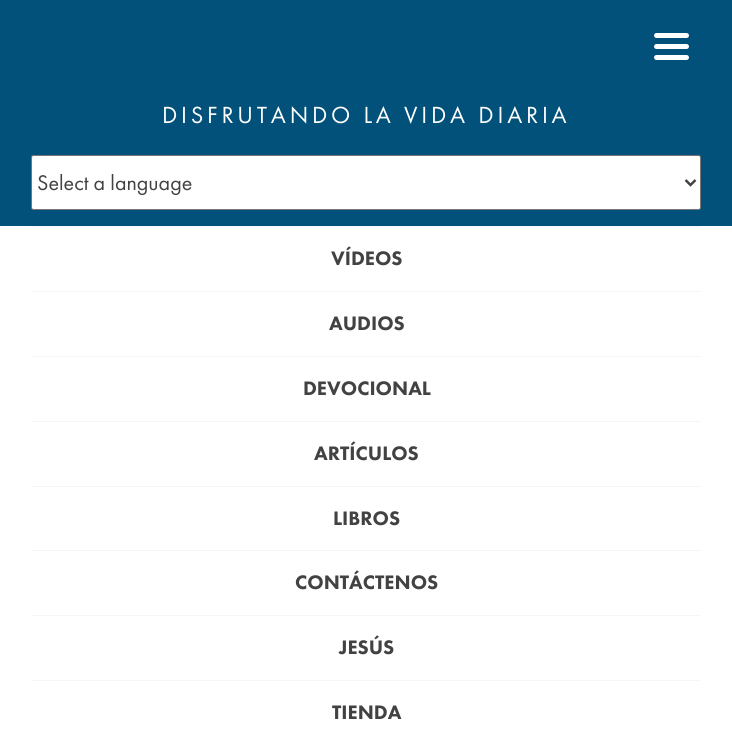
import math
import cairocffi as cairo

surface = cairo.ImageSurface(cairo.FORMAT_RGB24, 732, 732)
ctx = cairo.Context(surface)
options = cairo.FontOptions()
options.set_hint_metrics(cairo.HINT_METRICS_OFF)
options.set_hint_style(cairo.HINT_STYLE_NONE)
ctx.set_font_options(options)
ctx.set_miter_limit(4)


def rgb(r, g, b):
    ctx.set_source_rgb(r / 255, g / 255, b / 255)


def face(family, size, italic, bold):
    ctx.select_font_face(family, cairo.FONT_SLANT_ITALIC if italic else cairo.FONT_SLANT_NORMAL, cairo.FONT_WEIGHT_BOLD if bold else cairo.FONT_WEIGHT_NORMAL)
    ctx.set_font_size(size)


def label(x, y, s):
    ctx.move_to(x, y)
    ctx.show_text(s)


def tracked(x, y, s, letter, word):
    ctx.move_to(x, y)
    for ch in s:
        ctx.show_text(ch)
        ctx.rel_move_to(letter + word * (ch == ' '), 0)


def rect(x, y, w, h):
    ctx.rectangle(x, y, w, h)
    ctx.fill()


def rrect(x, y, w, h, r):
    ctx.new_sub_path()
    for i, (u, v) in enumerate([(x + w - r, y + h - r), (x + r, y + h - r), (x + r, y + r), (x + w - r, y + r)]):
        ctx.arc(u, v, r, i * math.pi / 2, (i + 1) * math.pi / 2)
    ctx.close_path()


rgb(2, 81, 123)
ctx.paint()
rgb(255, 255, 255)
rrect(654, 33, 35, 5, 2.5)
ctx.fill()
rrect(654, 44, 35, 5, 2.5)
ctx.fill()
rrect(654, 55, 35, 5, 2.5)
ctx.fill()
face('Futura PT', 24.25, 0, 0)
tracked(162, 123, 'DISFRUTANDO LA VIDA DIARIA', 3.75, 0)
rrect(31.5, 155.5, 669, 54, 2)
ctx.fill_preserve()
rgb(118, 118, 118)
ctx.set_line_width(1)
ctx.stroke()
ctx.new_path()
ctx.move_to(685.5, 180)
ctx.line_to(690.5, 185)
ctx.line_to(695.5, 180)
rgb(66, 66, 66)
ctx.set_line_width(2.5)
ctx.stroke()
face('Futura PT', 22, 0, 0)
label(37, 190, 'Select a language')
rgb(255, 255, 255)
rect(0, 226, 732, 506)
rgb(245, 245, 245)
rect(31, 226, 670, 1)
face('Futura PT Black', 20.25, 0, 0)
rgb(66, 66, 66)
label(331, 265, 'VÍDEOS')
rgb(245, 245, 245)
rect(31, 291, 670, 1)
rgb(66, 66, 66)
label(329, 330, 'AUDIOS')
rgb(245, 245, 245)
rect(31, 356, 670, 1)
rgb(66, 66, 66)
label(303, 395, 'DEVOCIONAL')
rgb(245, 245, 245)
rect(31, 421, 670, 1)
rgb(66, 66, 66)
label(314, 460, 'ARTÍCULOS')
rgb(245, 245, 245)
rect(31, 486, 670, 1)
rgb(66, 66, 66)
label(333, 525, 'LIBROS')
rgb(245, 245, 245)
rect(31, 550, 670, 1)
rgb(66, 66, 66)
label(295, 589, 'CONTÁCTENOS')
rgb(245, 245, 245)
rect(31, 615, 670, 1)
rgb(66, 66, 66)
label(339, 654, 'JESÚS')
rgb(245, 245, 245)
rect(31, 680, 670, 1)
rgb(66, 66, 66)
label(332, 719, 'TIENDA')
surface.write_to_png('render.png')
